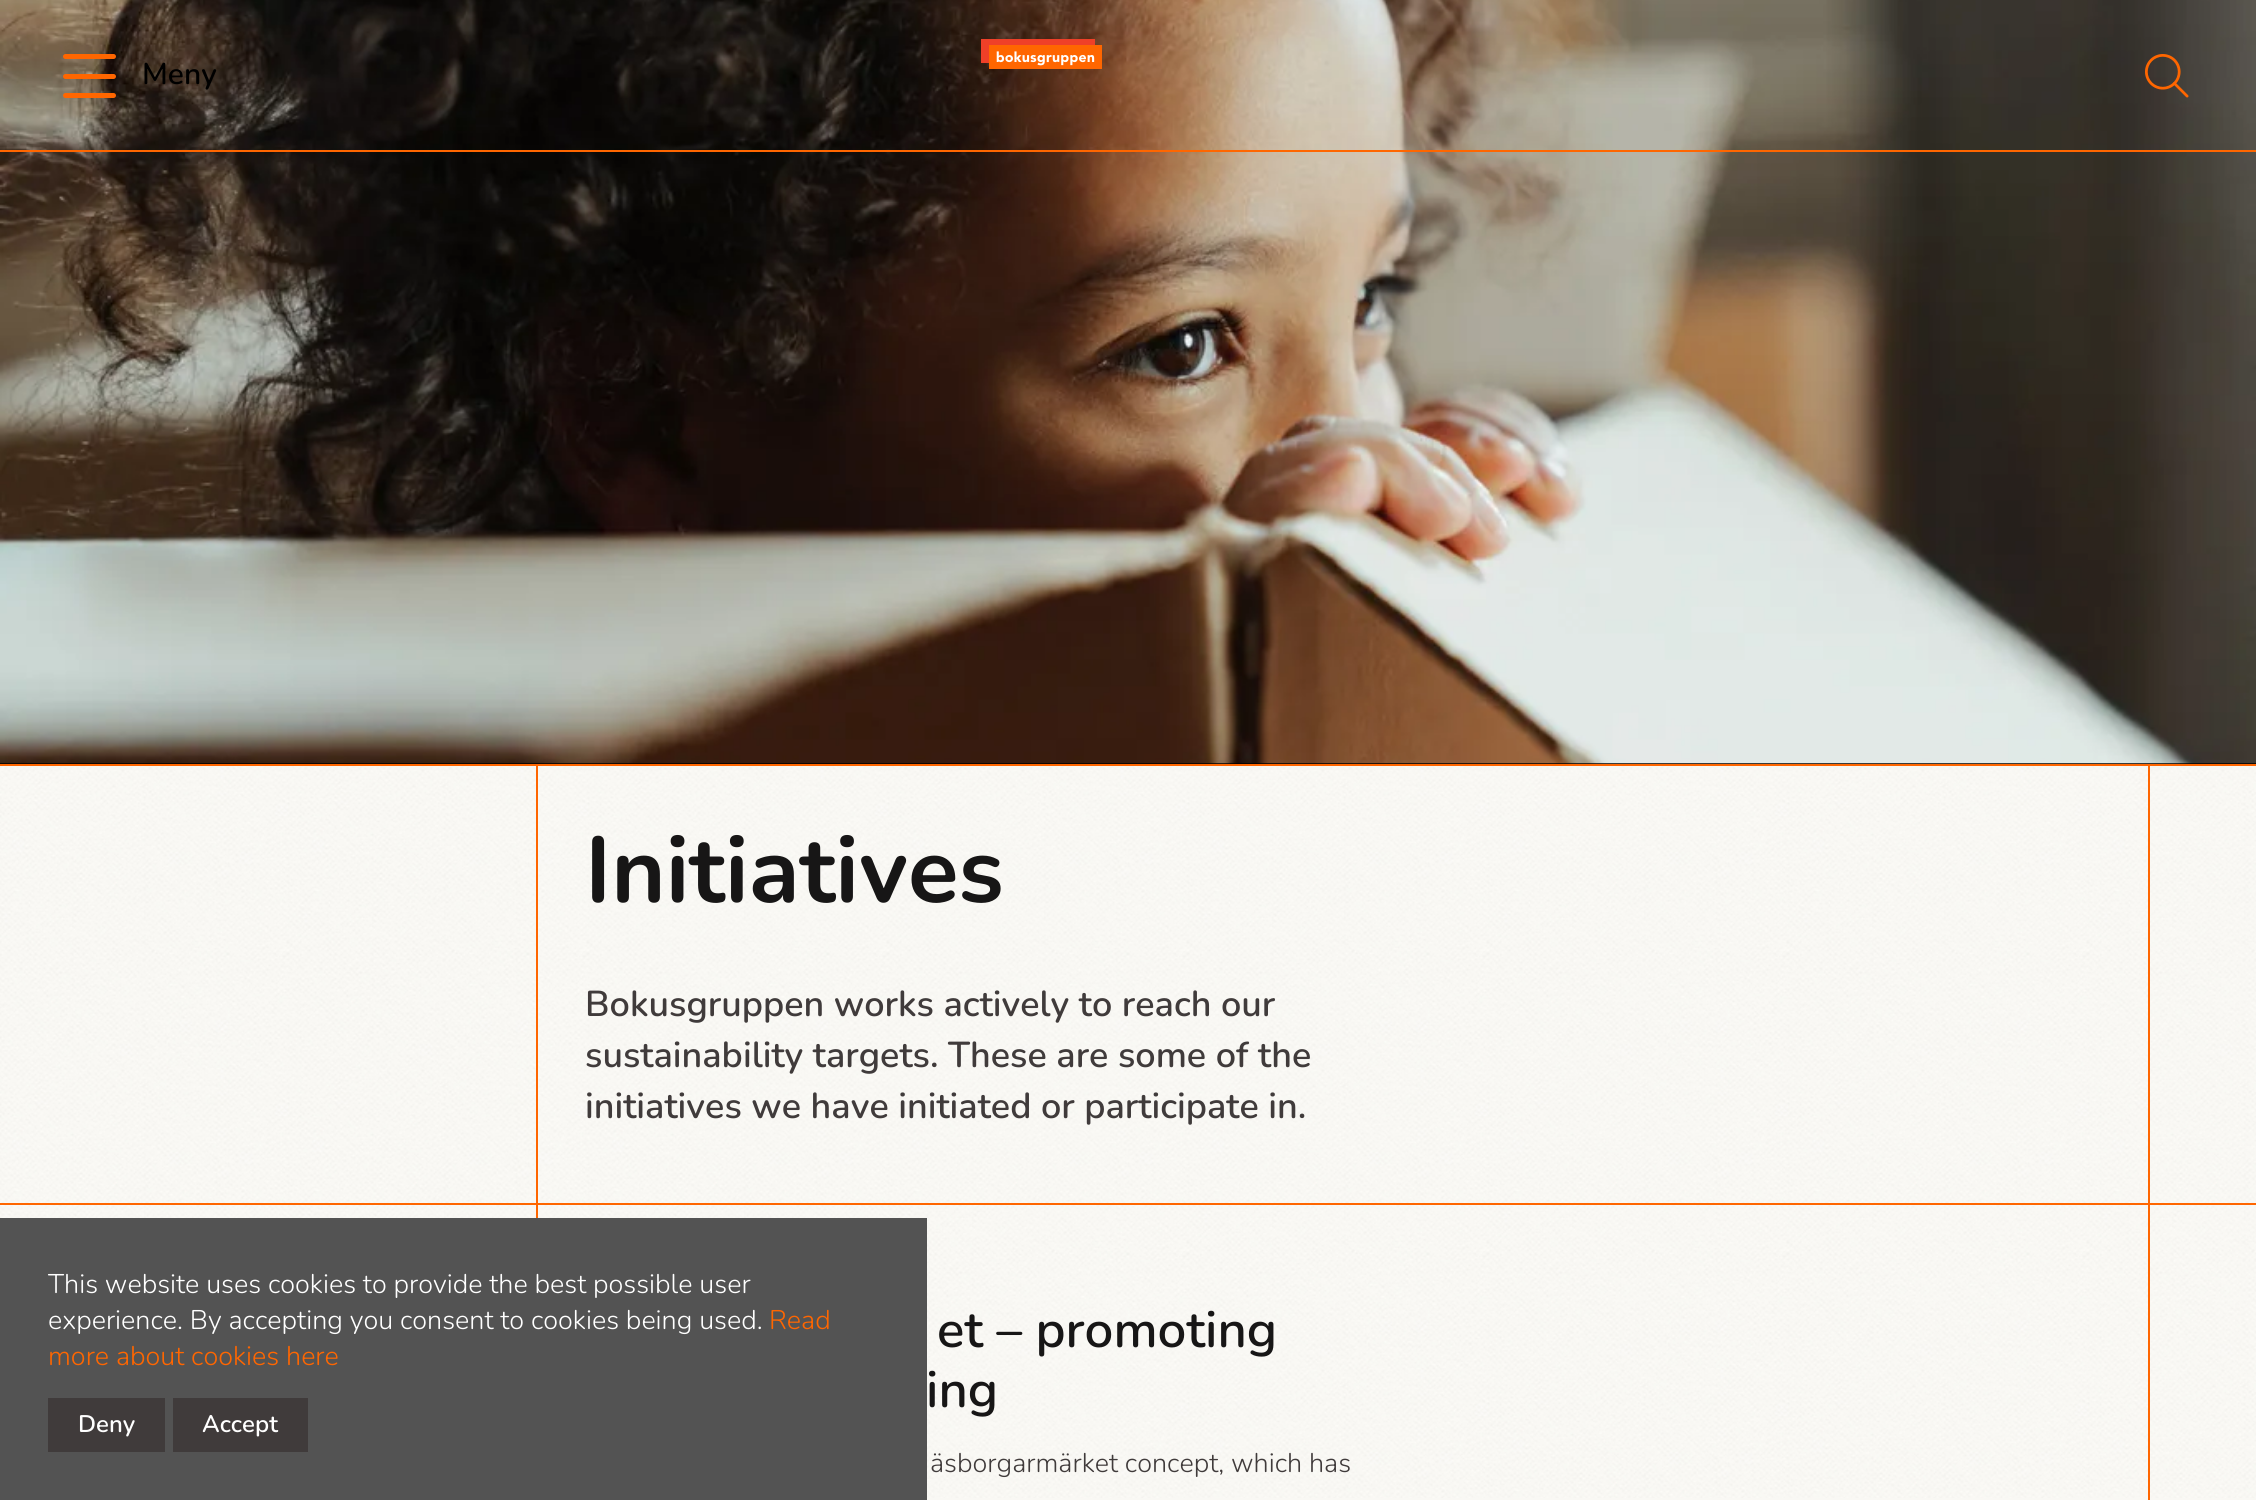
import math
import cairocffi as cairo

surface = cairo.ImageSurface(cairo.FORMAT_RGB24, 2256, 1500)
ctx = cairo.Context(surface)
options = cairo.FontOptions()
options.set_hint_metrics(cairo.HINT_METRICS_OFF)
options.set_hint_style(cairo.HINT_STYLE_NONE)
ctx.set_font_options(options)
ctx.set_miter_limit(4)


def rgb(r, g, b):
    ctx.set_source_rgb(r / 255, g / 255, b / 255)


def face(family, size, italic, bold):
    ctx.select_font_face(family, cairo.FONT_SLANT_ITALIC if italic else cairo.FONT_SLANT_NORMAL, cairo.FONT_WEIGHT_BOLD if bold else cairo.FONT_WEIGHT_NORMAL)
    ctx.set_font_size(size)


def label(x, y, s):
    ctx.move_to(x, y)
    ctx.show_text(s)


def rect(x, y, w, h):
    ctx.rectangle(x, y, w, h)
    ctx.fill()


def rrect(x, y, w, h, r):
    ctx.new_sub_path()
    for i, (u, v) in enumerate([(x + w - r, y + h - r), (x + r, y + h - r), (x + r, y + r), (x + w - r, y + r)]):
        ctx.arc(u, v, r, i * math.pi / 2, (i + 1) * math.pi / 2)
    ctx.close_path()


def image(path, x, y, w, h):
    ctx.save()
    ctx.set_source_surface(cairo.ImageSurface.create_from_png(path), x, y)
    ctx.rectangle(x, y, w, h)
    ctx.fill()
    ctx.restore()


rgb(249, 248, 244)
ctx.paint()
image('image0.png', 0, 766, 2256, 732)
rgb(0, 0, 0)
rect(0, 763, 2256, 1)
image('image3.png', 0, 0, 2256, 764)
rgb(255, 102, 0)
rect(0, 150, 2256, 2)
rrect(63, 74, 53, 5, 2.5)
ctx.fill()
rrect(63, 54, 53, 5, 2.5)
ctx.fill()
face('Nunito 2 ExtraLight', 30, 0, 0)
rgb(0, 0, 0)
label(142, 84, 'Meny')
rgb(255, 102, 0)
rrect(63, 93, 53, 5, 2.5)
ctx.fill()
image('image1.png', 981, 39, 121, 30)
image('image2.png', 2145, 54, 44, 44)
rect(536, 766, 2, 452)
rect(0, 764, 2256, 2)
rect(2148, 765, 2, 438)
face('Nunito ExtraLight', 93, 0, 0)
rgb(23, 22, 22)
label(585, 902, 'Initiatives')
face('Nunito 2 ExtraLight', 36, 0, 0)
rgb(64, 59, 59)
label(585, 1016, 'Bokusgruppen works actively to reach our')
label(585, 1067, 'sustainability targets. These are some of the')
label(585, 1118, 'initiatives we have initiated or participate in.')
rgb(255, 102, 0)
rect(0, 1203, 2256, 2)
rect(2148, 1205, 2, 295)
face('Nunito 2 ExtraLight', 51, 0, 0)
rgb(23, 22, 22)
label(937, 1347, 'et – promoting')
label(926, 1407, 'ing')
face('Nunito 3 ExtraLight', 27, 0, 0)
rgb(64, 59, 59)
label(930, 1472, 'äsborgarmärket concept, which has')
rgb(83, 83, 83)
rect(0, 1218, 927, 282)
rgb(255, 255, 255)
label(48, 1293, 'This website uses cookies to provide the best possible user')
label(48, 1329, 'experience. By accepting you consent to cookies being used.')
rgb(255, 102, 0)
label(769, 1329, 'Read')
label(48, 1365, 'more about cookies here')
rgb(64, 59, 59)
rect(48, 1398, 117, 54)
face('Nunito 2 ExtraLight', 24, 0, 0)
rgb(255, 255, 255)
label(78, 1432, 'Deny')
rgb(64, 59, 59)
rect(173, 1398, 135, 54)
rgb(255, 255, 255)
label(202, 1432, 'Accept')
surface.write_to_png('render.png')
